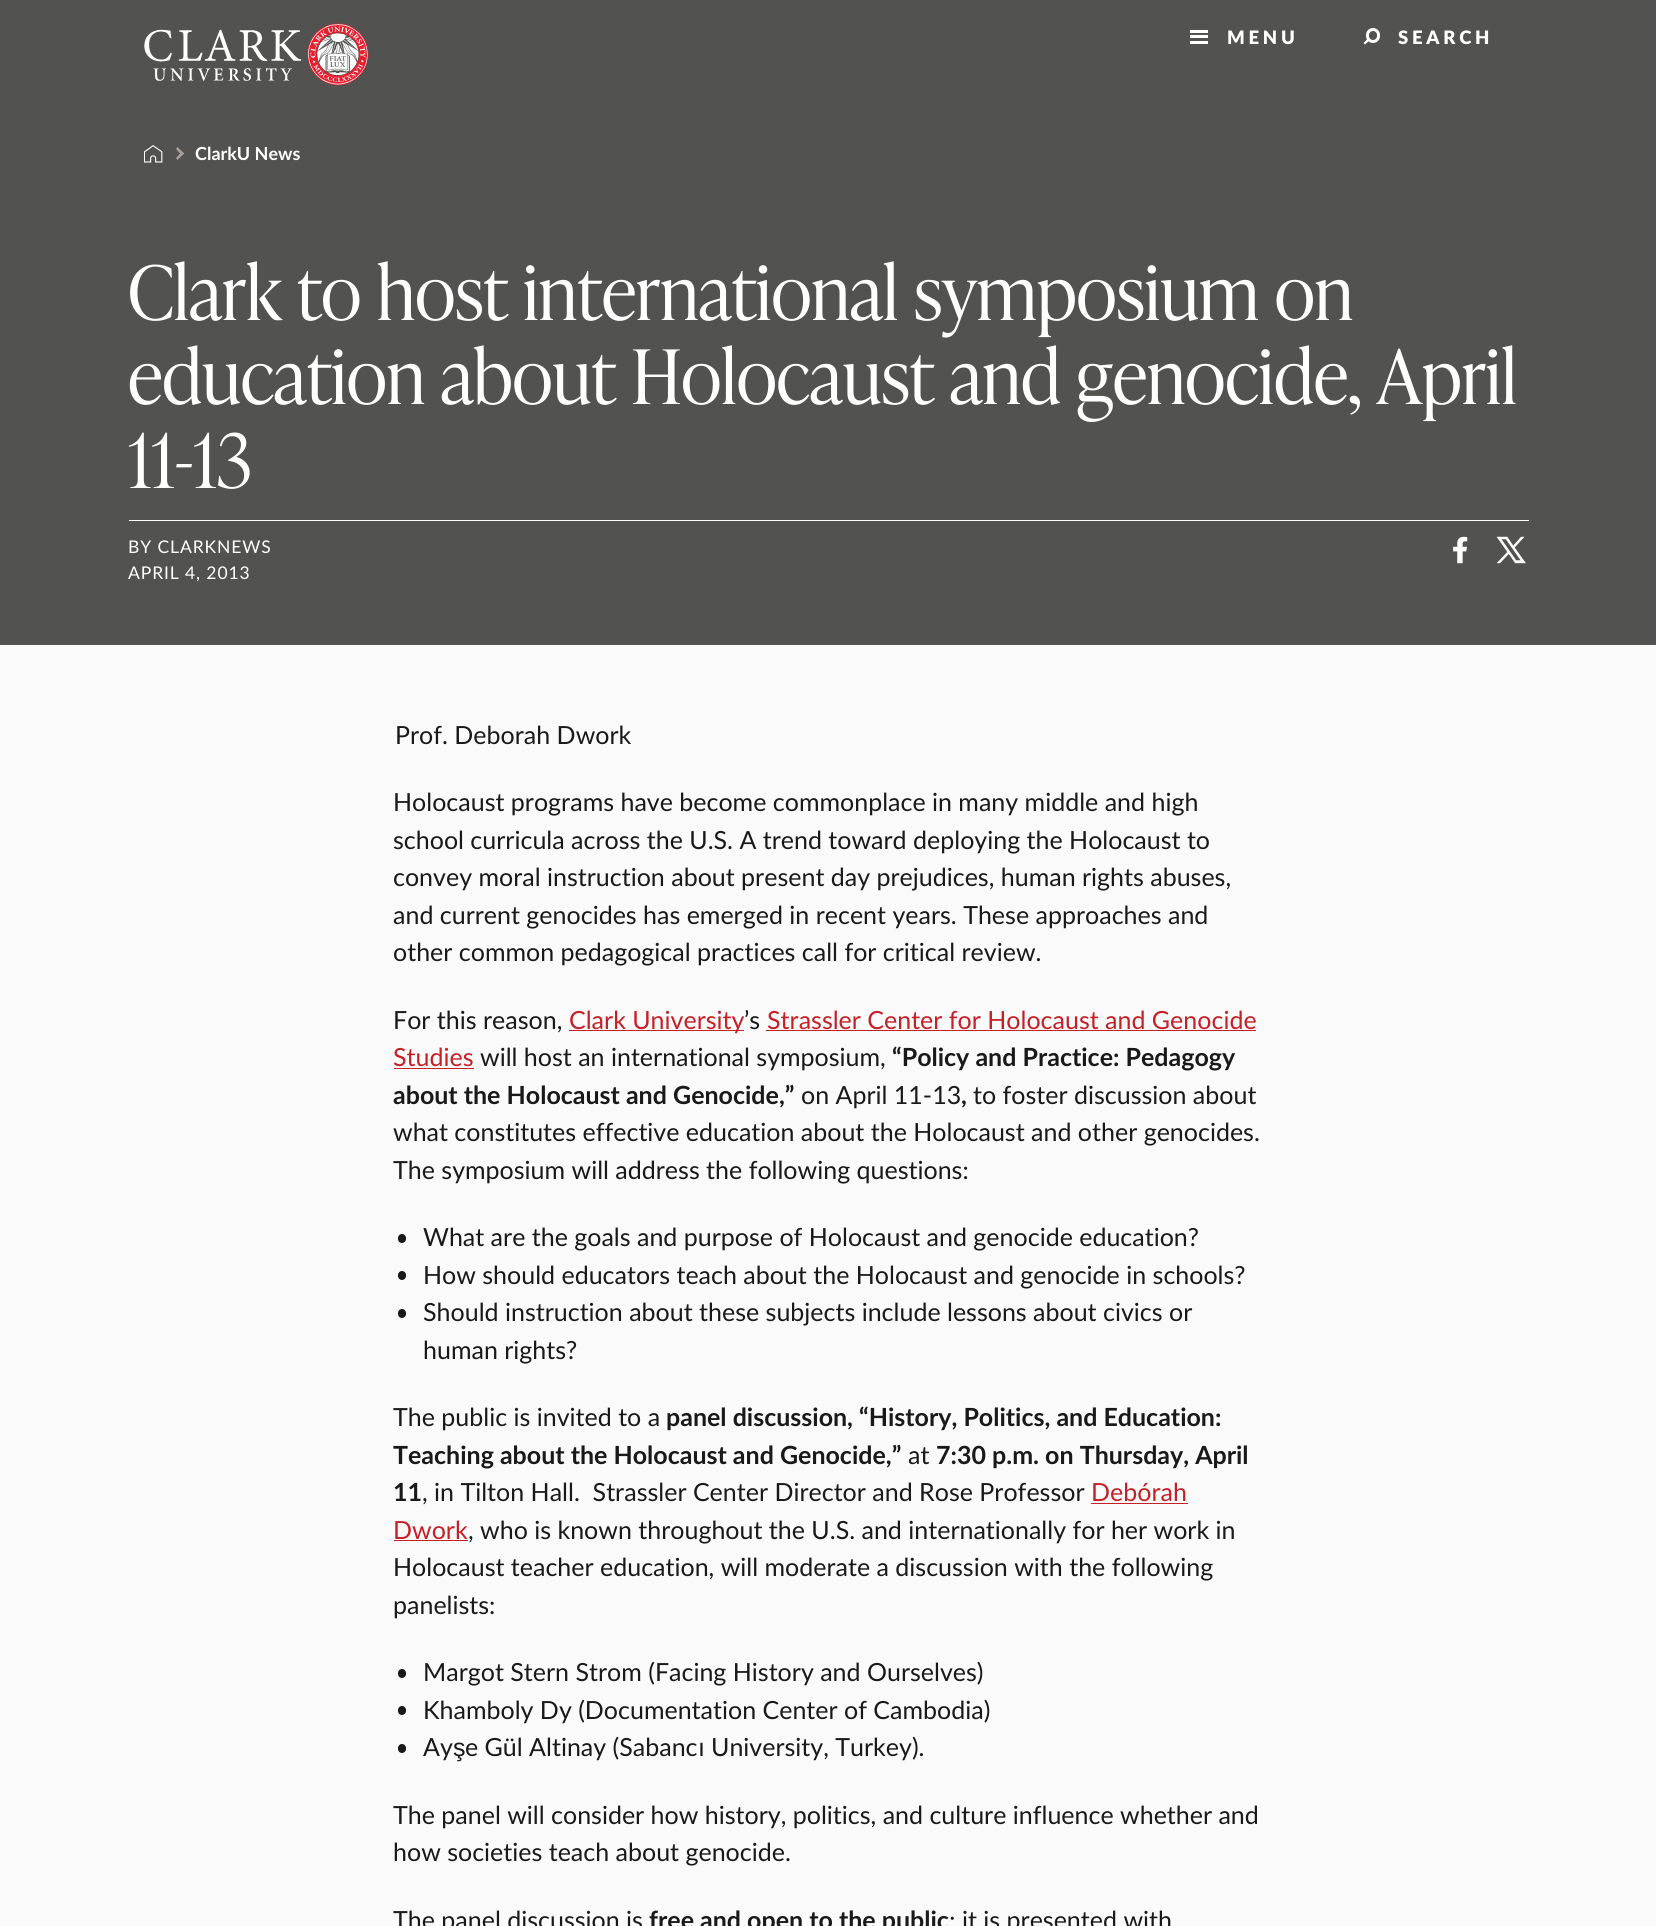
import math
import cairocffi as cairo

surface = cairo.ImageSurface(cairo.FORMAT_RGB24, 1656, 1926)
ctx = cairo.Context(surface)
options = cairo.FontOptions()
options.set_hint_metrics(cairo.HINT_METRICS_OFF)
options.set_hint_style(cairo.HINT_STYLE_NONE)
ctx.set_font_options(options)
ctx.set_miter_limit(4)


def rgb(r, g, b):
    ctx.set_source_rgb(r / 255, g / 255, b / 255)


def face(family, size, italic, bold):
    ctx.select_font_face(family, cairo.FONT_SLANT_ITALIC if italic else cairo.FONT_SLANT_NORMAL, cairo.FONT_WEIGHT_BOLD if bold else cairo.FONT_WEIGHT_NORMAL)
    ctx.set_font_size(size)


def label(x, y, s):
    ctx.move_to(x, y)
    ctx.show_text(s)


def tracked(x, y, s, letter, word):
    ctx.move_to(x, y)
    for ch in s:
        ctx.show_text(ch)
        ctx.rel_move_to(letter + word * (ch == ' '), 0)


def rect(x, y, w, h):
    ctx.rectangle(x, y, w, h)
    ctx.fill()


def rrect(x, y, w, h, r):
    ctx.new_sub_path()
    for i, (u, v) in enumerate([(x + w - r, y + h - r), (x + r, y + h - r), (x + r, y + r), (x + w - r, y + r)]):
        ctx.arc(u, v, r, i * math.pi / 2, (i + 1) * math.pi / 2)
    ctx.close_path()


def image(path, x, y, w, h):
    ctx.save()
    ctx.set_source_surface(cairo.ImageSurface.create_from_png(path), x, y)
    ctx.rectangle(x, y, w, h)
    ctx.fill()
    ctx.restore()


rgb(250, 250, 250)
ctx.paint()
rgb(82, 82, 80)
rect(0, 0, 1656, 645)
image('image0.png', 144, 23, 225, 63)
rgb(255, 255, 255)
rect(1190, 30, 18, 3)
rect(1190, 41, 18, 3)
face('Lato Black', 18.5, 0, 0)
tracked(1227, 44, 'MENU', 3.75, 0)
rect(1190, 35, 18, 3)
rrect(1367.5, 29.5, 11, 12, 5.5)
ctx.set_line_width(3)
ctx.stroke()
tracked(1398, 44, 'SEARCH', 3.75, 0)
ctx.new_path()
ctx.move_to(1363.5, 43)
ctx.line_to(1368.5, 38)
ctx.line_to(1370.5, 39.5)
ctx.line_to(1365, 44.5)
ctx.close_path()
ctx.fill()
image('image1.png', 144, 145, 19, 18)
rgb(170, 160, 152)
ctx.new_path()
ctx.move_to(177.5, 147)
ctx.line_to(184, 153.5)
ctx.line_to(182, 155.5)
ctx.line_to(176, 149)
ctx.close_path()
ctx.fill()
ctx.new_path()
ctx.move_to(182, 151.5)
ctx.line_to(184, 153.5)
ctx.line_to(177.5, 160)
ctx.line_to(176, 158)
ctx.close_path()
ctx.fill()
face('Lato', 18, 0, 1)
rgb(255, 255, 255)
label(195, 160, 'ClarkU News')
face('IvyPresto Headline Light', 75, 0, 0)
label(128, 320, 'Clark to host international symposium on')
label(128, 404, 'education about Holocaust and genocide, April')
label(128, 488, '11-13')
rect(129, 520, 1400, 1)
face('Lato', 17.5, 0, 0)
tracked(128, 553, 'BY CLARKNEWS', 0.9, 0)
tracked(128, 579, 'APRIL 4, 2013', 0.9, 0)
image('image2.png', 1453, 536, 15, 28)
image('image3.png', 1496, 536, 30, 28)
face('Lato', 25, 0, 0)
rgb(26, 25, 25)
label(395, 744, 'Prof. Deborah Dwork')
label(393, 811, 'Holocaust programs have become commonplace in many middle and high')
label(393, 849, 'school curricula across the U.S. A trend toward deploying the Holocaust to')
label(393, 886, 'convey moral instruction about present day prejudices, human rights abuses,')
label(393, 924, 'and current genocides has emerged in recent years. These approaches and')
label(393, 961, 'other common pedagogical practices call for critical review.')
label(393, 1029, 'For this reason,')
rgb(197, 32, 38)
rect(569, 1030, 175, 1)
label(569, 1029, 'Clark University')
rgb(26, 25, 25)
label(744, 1029, '’s')
rgb(197, 32, 38)
label(767, 1029, 'Strassler Center for Holocaust and Genocide')
rect(766, 1030, 490, 1)
label(393, 1066, 'Studies')
rect(394, 1068, 80, 1)
rgb(26, 25, 25)
label(480, 1066, 'will host an international symposium,')
face('Lato', 25, 0, 1)
label(892, 1066, '“Policy and Practice: Pedagogy')
label(393, 1104, 'about the Holocaust and Genocide,”')
face('Lato', 25, 0, 0)
label(801, 1104, 'on April 11-13')
face('Lato', 25, 0, 1)
label(961, 1104, ',')
face('Lato', 25, 0, 0)
label(973, 1104, 'to foster discussion about')
label(393, 1141, 'what constitutes effective education about the Holocaust and other genocides.')
label(393, 1179, 'The symposium will address the following questions:')
rrect(398, 1234, 8, 9, 4)
ctx.fill()
label(423, 1246, 'What are the goals and purpose of Holocaust and genocide education?')
rrect(398, 1271, 8, 9, 4)
ctx.fill()
label(423, 1284, 'How should educators teach about the Holocaust and genocide in schools?')
rrect(398, 1309, 8, 9, 4)
ctx.fill()
label(423, 1321, 'Should instruction about these subjects include lessons about civics or')
label(423, 1359, 'human rights?')
label(393, 1426, 'The public is invited to a')
face('Lato', 25, 0, 1)
label(666, 1426, 'panel discussion, “History, Politics, and Education:')
label(393, 1464, 'Teaching about the Holocaust and Genocide,”')
face('Lato', 25, 0, 0)
label(908, 1464, 'at')
face('Lato', 25, 0, 1)
label(936, 1464, '7:30 p.m. on Thursday, April')
label(393, 1501, '11')
face('Lato', 25, 0, 0)
label(422, 1501, ', in Tilton Hall.  Strassler Center Director and Rose Professor')
rgb(197, 32, 38)
label(1091, 1501, 'Debórah')
rect(1091, 1503, 97, 1)
label(393, 1539, 'Dwork')
rect(394, 1540, 74, 1)
rgb(26, 25, 25)
label(468, 1539, ', who is known throughout the U.S. and internationally for her work in')
label(393, 1576, 'Holocaust teacher education, will moderate a discussion with the following')
label(393, 1614, 'panelists:')
rrect(398, 1669, 8, 9, 4)
ctx.fill()
label(423, 1681, 'Margot Stern Strom (Facing History and Ourselves)')
rrect(398, 1706, 8, 9, 4)
ctx.fill()
label(423, 1719, 'Khamboly Dy (Documentation Center of Cambodia)')
rrect(398, 1744, 8, 9, 4)
ctx.fill()
label(423, 1756, 'Ay')
face('Liberation Sans', 25, 0, 0)
label(453, 1756, 'ş')
face('Lato', 25, 0, 0)
label(465, 1756, 'e Gül Altinay (Sabanc')
face('Liberation Sans', 25, 0, 0)
label(698, 1756, 'ı')
face('Lato', 25, 0, 0)
label(711, 1756, 'University, Turkey).')
label(393, 1824, 'The panel will consider how history, politics, and culture influence whether and')
label(393, 1861, 'how societies teach about genocide.')
label(393, 1929, 'The panel discussion is')
face('Lato', 25, 0, 1)
label(649, 1929, 'free and open to the public')
face('Lato', 25, 0, 0)
label(949, 1929, '; it is presented with')
surface.write_to_png('render.png')
